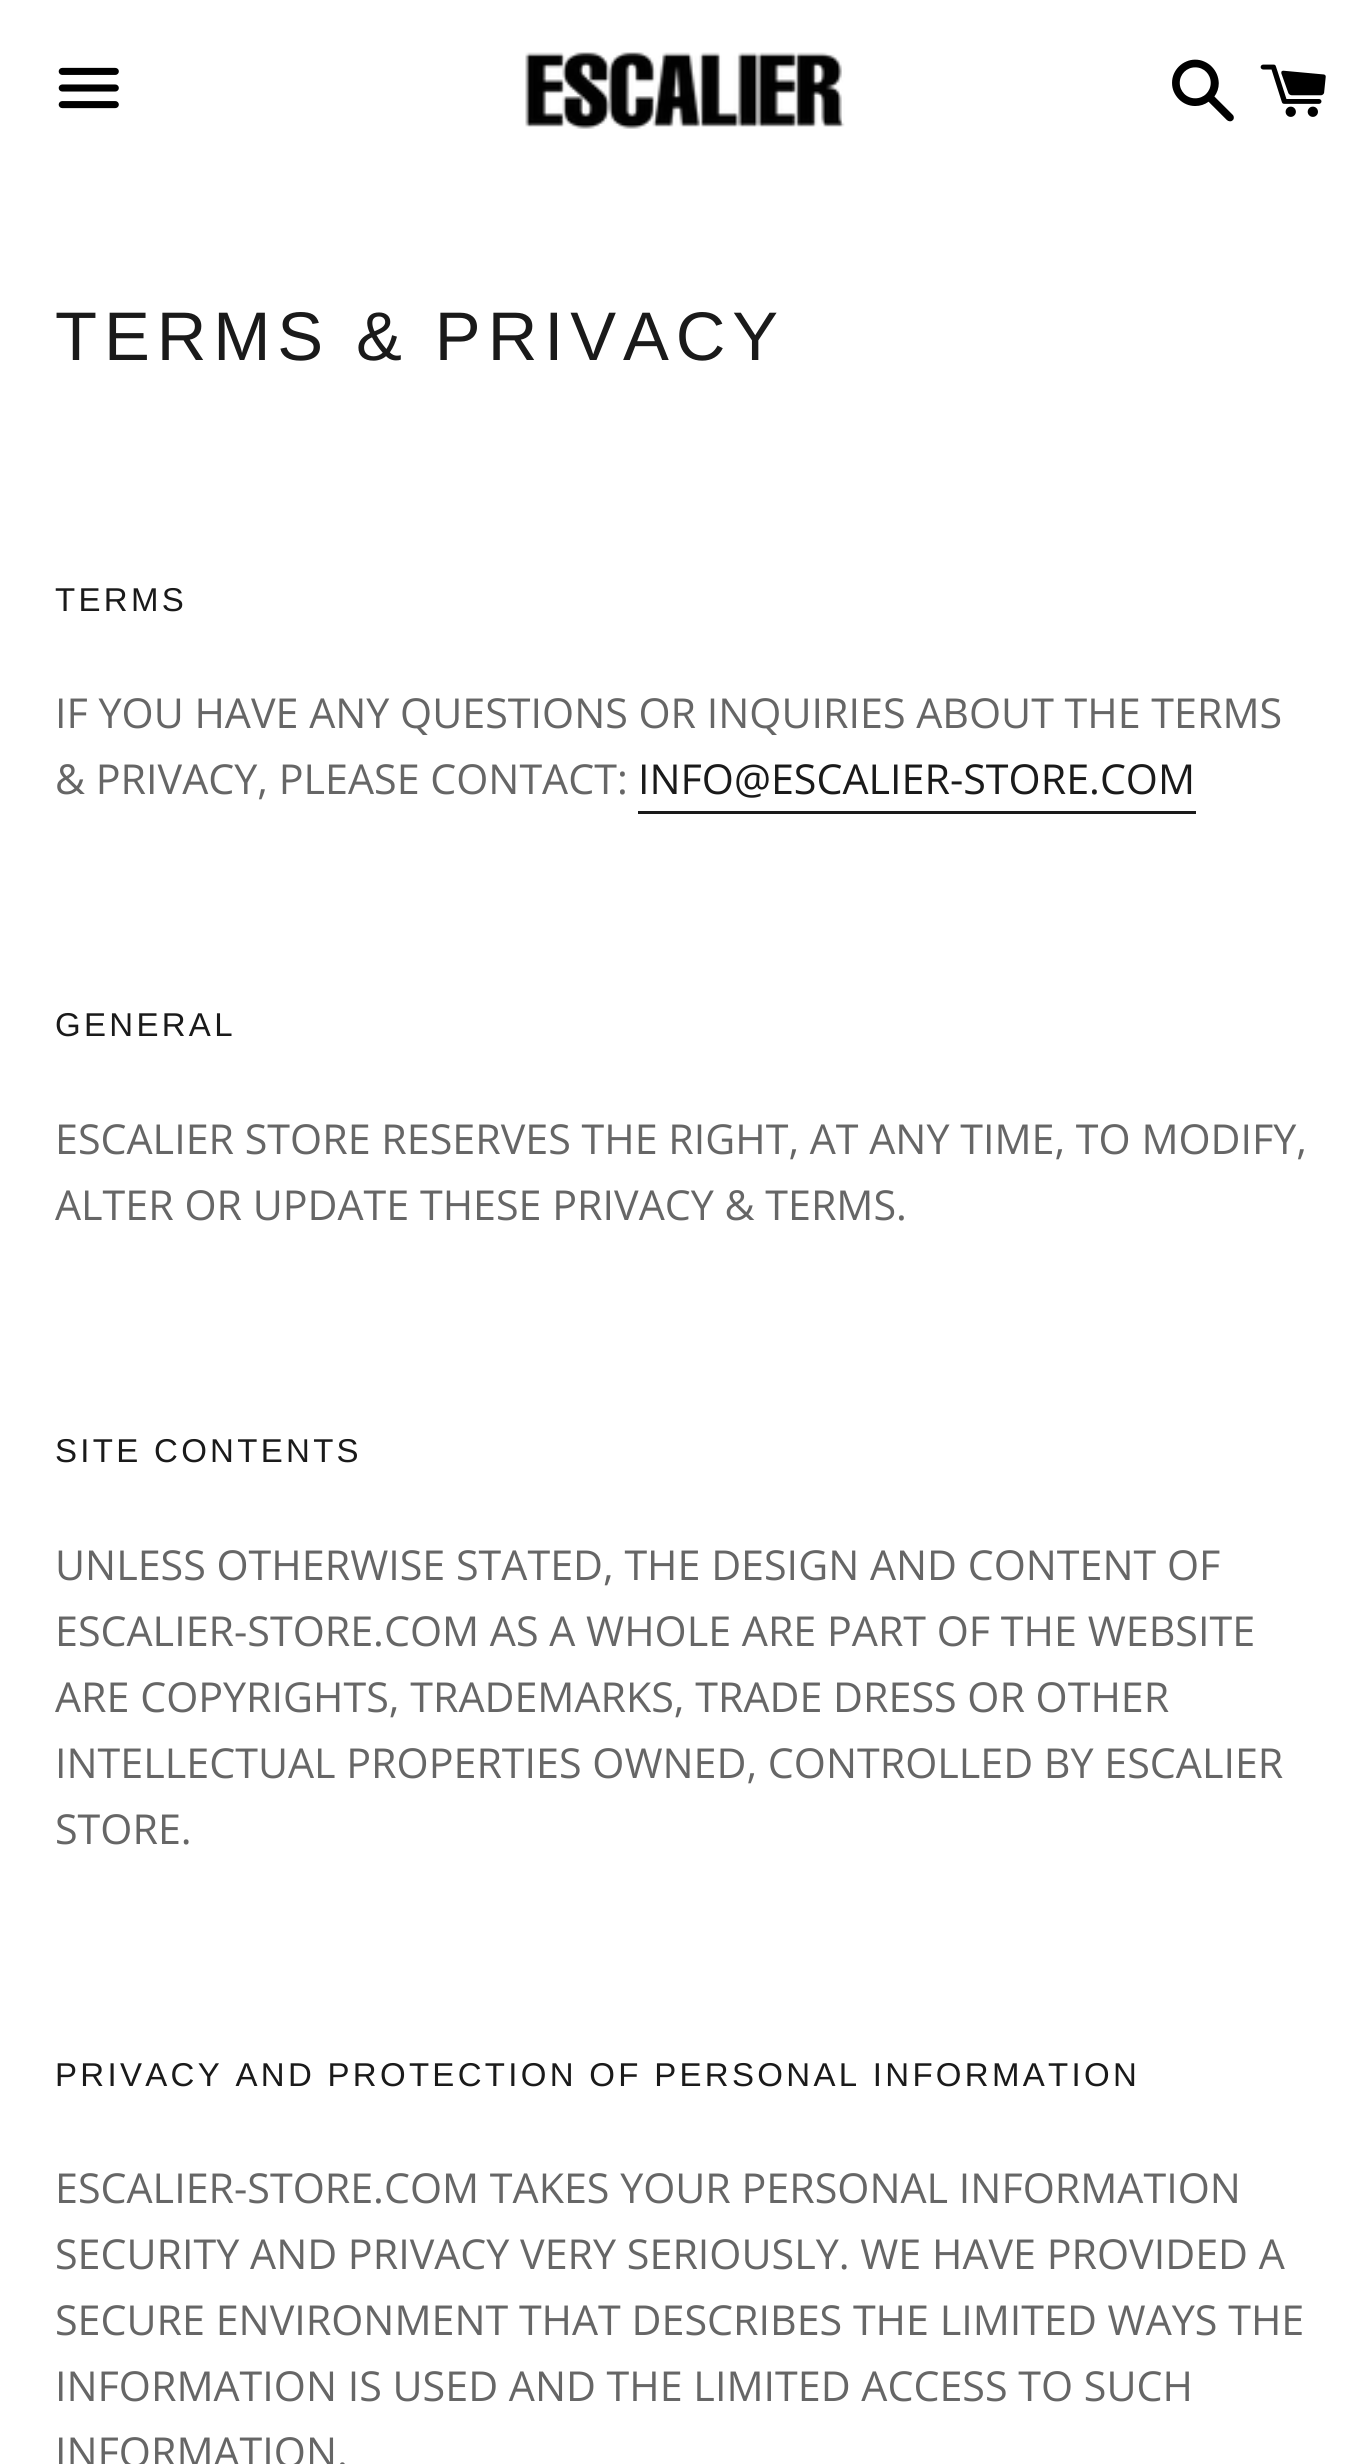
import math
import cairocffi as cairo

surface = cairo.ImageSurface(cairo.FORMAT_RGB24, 1367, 2464)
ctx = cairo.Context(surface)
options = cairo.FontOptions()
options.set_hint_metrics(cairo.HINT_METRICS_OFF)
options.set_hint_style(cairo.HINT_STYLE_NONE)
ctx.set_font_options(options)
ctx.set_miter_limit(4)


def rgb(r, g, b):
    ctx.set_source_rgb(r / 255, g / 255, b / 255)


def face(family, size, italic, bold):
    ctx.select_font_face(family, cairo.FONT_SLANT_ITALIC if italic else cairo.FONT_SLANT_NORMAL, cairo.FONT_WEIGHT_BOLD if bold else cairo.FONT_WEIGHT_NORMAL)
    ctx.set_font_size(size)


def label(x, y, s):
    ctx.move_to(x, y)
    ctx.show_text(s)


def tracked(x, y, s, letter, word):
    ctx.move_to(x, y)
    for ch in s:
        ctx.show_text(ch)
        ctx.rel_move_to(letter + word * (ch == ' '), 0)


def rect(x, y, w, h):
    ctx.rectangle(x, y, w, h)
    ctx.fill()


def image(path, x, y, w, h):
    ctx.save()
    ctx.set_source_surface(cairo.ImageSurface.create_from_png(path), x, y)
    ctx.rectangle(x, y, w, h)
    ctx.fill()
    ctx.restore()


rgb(255, 255, 255)
ctx.paint()
image('image0.png', 58, 67, 61, 42)
image('image1.png', 525, 52, 320, 77)
image('image2.png', 1172, 59, 62, 63)
image('image3.png', 1260, 64, 66, 53)
face('Liberation Sans', 68.75, 0, 0)
rgb(26, 26, 26)
tracked(55, 360, 'TERMS & PRIVACY', 6.9, 0)
face('Liberation Sans', 33, 0, 0)
tracked(55, 611, 'TERMS', 3.3, 0)
face('Open Sans', 41.25, 0, 0)
rgb(102, 102, 102)
label(55, 728, 'IF YOU HAVE ANY QUESTIONS OR INQUIRIES ABOUT THE TERMS')
label(55, 794, '& PRIVACY, PLEASE CONTACT:')
rgb(26, 26, 26)
label(638, 794, 'INFO@ESCALIER-STORE.COM')
rect(638, 811, 558, 3)
face('Liberation Sans', 33, 0, 0)
tracked(55, 1036, 'GENERAL', 3.3, 0)
face('Open Sans', 41.25, 0, 0)
rgb(102, 102, 102)
label(55, 1154, 'ESCALIER STORE RESERVES THE RIGHT, AT ANY TIME, TO MODIFY,')
label(55, 1220, 'ALTER OR UPDATE THESE PRIVACY & TERMS.')
face('Liberation Sans', 33, 0, 0)
rgb(26, 26, 26)
tracked(55, 1462, 'SITE CONTENTS', 3.3, 0)
face('Open Sans', 41.25, 0, 0)
rgb(102, 102, 102)
label(55, 1580, 'UNLESS OTHERWISE STATED, THE DESIGN AND CONTENT OF')
label(55, 1646, 'ESCALIER-STORE.COM AS A WHOLE ARE PART OF THE WEBSITE')
label(55, 1712, 'ARE COPYRIGHTS, TRADEMARKS, TRADE DRESS OR OTHER')
label(55, 1778, 'INTELLECTUAL PROPERTIES OWNED, CONTROLLED BY ESCALIER')
label(55, 1844, 'STORE.')
face('Liberation Sans', 33, 0, 0)
rgb(26, 26, 26)
tracked(55, 2086, 'PRIVACY AND PROTECTION OF PERSONAL INFORMATION', 3.3, 0)
face('Open Sans', 41.25, 0, 0)
rgb(102, 102, 102)
label(55, 2203, 'ESCALIER-STORE.COM TAKES YOUR PERSONAL INFORMATION')
label(55, 2269, 'SECURITY AND PRIVACY VERY SERIOUSLY. WE HAVE PROVIDED A')
label(55, 2335, 'SECURE ENVIRONMENT THAT DESCRIBES THE LIMITED WAYS THE')
label(55, 2401, 'INFORMATION IS USED AND THE LIMITED ACCESS TO SUCH')
label(55, 2467, 'INFORMATION.')
surface.write_to_png('render.png')
